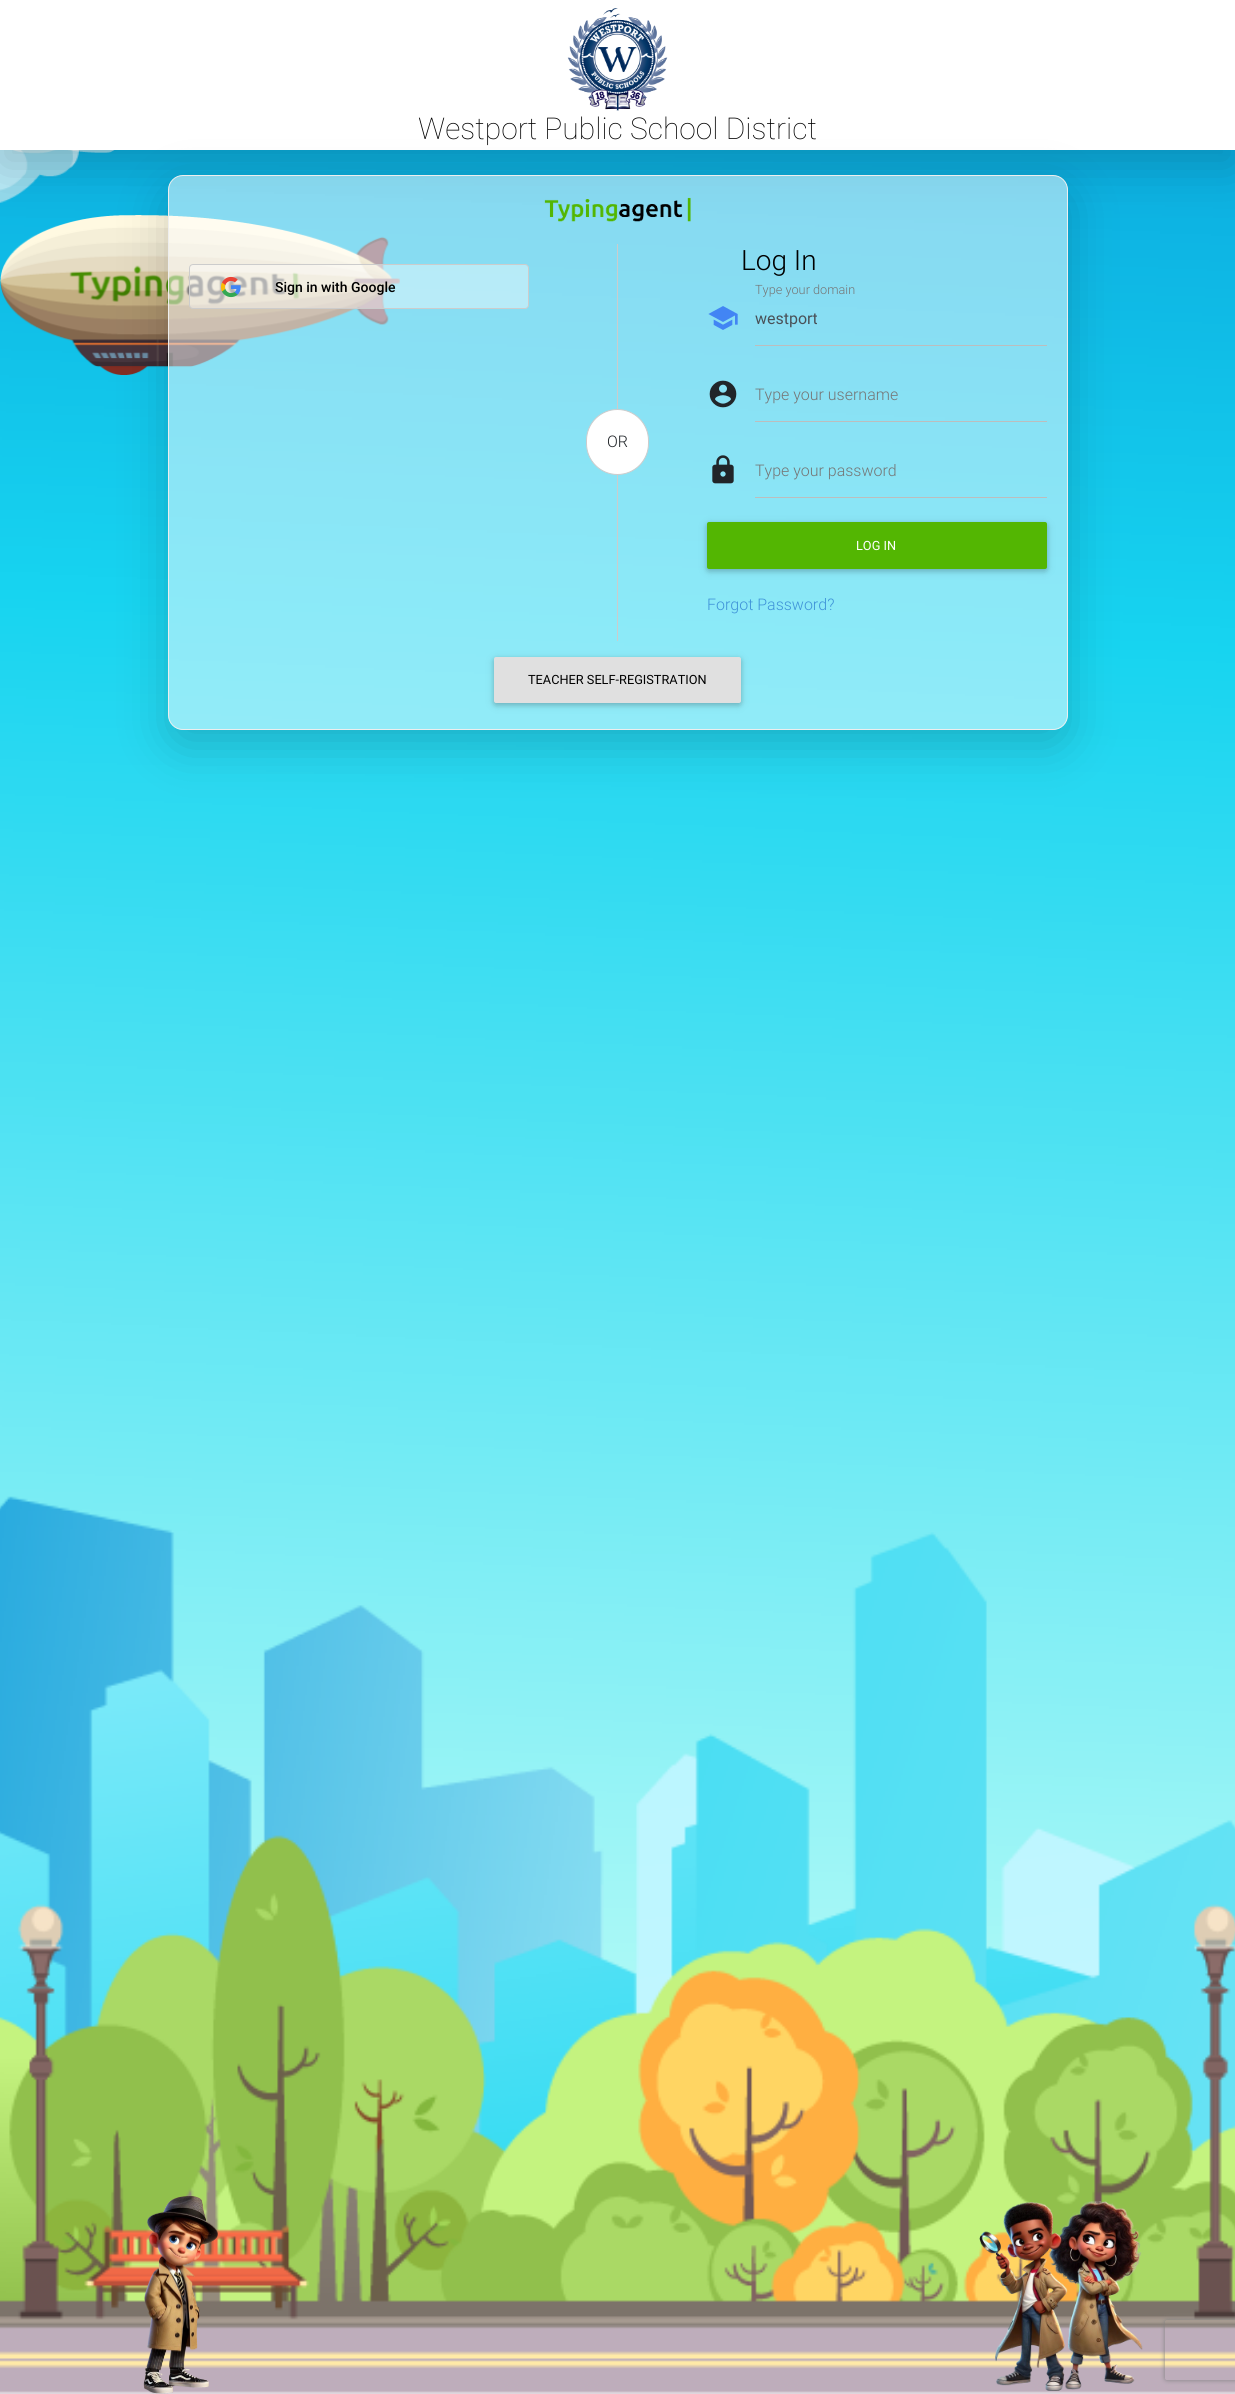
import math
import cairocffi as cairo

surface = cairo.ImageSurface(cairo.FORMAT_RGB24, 1235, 2394)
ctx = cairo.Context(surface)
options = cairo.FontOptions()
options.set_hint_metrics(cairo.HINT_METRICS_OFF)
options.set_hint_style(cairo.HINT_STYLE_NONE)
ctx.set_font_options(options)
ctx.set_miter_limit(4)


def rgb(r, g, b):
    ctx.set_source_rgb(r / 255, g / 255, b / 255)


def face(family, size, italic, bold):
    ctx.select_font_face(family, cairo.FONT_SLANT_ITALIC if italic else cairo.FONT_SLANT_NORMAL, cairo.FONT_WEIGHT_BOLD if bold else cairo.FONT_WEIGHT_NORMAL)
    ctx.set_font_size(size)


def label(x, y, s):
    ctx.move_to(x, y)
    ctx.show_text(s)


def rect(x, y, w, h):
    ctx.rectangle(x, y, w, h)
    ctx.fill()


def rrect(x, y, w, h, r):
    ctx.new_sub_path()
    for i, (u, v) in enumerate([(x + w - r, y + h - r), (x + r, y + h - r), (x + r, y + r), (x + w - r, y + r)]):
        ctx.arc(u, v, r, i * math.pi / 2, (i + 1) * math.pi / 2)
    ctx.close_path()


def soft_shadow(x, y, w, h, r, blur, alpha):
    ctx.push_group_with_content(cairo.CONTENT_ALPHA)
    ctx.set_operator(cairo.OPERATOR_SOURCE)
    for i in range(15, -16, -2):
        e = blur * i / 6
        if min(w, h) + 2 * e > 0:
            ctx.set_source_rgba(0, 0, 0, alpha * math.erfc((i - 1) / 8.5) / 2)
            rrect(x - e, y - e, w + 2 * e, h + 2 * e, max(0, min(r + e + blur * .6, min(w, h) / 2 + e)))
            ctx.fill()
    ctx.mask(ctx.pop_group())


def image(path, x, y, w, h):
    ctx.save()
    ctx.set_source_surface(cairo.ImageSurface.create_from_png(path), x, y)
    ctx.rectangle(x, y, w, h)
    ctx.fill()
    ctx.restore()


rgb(255, 255, 255)
ctx.paint()
image('image0.png', 0, 150, 1235, 2244)
image('image3.png', 11, 150, 104, 4)
image('image2.png', 0, 150, 79, 53)
image('image4.png', 0, 215, 400, 160)
rgb(0, 0, 0)
soft_shadow(0, 16, 1235, 150, 0, 24, 0.18)
rgb(255, 255, 255)
rect(0, 0, 1235, 150)
image('image1.png', 567, 8, 101, 103)
face('Roboto Thin', 30, 0, 0)
rgb(0, 0, 0)
label(418, 139, 'Westport Public School District')
ctx.save()
ctx.set_fill_rule(cairo.FILL_RULE_EVEN_ODD)
ctx.new_path()
ctx.move_to(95, 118)
ctx.line_to(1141, 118)
ctx.line_to(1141, 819)
ctx.line_to(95, 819)
ctx.close_path()
ctx.move_to(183, 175)
ctx.line_to(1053, 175)
ctx.curve_to(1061.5, 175, 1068, 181.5, 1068, 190)
ctx.line_to(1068, 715)
ctx.curve_to(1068, 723.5, 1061.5, 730, 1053, 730)
ctx.line_to(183, 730)
ctx.curve_to(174.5, 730, 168, 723.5, 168, 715)
ctx.line_to(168, 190)
ctx.curve_to(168, 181.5, 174.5, 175, 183, 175)
ctx.close_path()
ctx.clip()
rgb(0, 0, 0)
soft_shadow(168, 191, 900, 555, 15, 24, 0.18)
ctx.restore()
ctx.set_source_rgba(1, 1, 1, 0.5)
rrect(168.5, 175.5, 899, 554, 14.5)
ctx.fill_preserve()
rgb(238, 238, 238)
ctx.set_line_width(1)
ctx.stroke()
image('image5.png', 544, 197, 147, 25)
ctx.set_source_rgba(1, 1, 1, 0.4)
rrect(189.5, 264.5, 339, 44, 3.5)
ctx.fill_preserve()
rgb(204, 204, 204)
ctx.stroke()
image('image6.png', 220, 276, 21, 22)
face('Roboto Medium', 14, 0, 0)
rgb(0, 0, 0)
label(275, 292, 'Sign in with Google')
face('Roboto Light', 28, 0, 0)
label(741, 270, 'Log In')
face('Roboto Light', 12.75, 0, 0)
rgb(117, 117, 117)
label(755, 294, 'Type your domain')
image('image7.png', 708, 306, 30, 24)
rgb(189, 189, 189)
rect(755, 345, 292, 1)
face('Roboto', 16, 0, 0)
rgb(73, 80, 87)
label(755, 324, 'westport')
image('image8.png', 709, 380, 28, 28)
face('Roboto Light', 16, 0, 0)
rgb(117, 117, 117)
label(755, 400, 'Type your username')
rgb(189, 189, 189)
rect(755, 421, 292, 1)
image('image9.png', 712, 455, 22, 29)
rgb(117, 117, 117)
label(755, 476, 'Type your password')
rgb(189, 189, 189)
rect(755, 497, 292, 1)
rgb(0, 0, 0)
soft_shadow(707, 524, 340, 47, 2, 5, 0.12)
soft_shadow(707, 524, 340, 47, 2, 2.5, 0.16)
rgb(83, 182, 2)
rrect(707, 522, 340, 47, 2)
ctx.fill()
face('Roboto', 12.75, 0, 0)
rgb(255, 255, 255)
label(856, 550, 'LOG IN')
face('Roboto Light', 16, 0, 0)
rgb(63, 147, 216)
label(707, 610, 'Forgot Password?')
rgb(204, 204, 204)
rect(617, 244, 1, 397)
rgb(255, 255, 255)
rrect(586.5, 409.5, 62, 65, 31)
ctx.fill_preserve()
rgb(204, 204, 204)
ctx.stroke()
rgb(33, 37, 41)
label(607, 447, 'OR')
rgb(0, 0, 0)
soft_shadow(494, 659, 247, 46, 2, 5, 0.12)
soft_shadow(494, 659, 247, 46, 2, 2.5, 0.16)
rgb(224, 224, 224)
rrect(494, 657, 247, 46, 2)
ctx.fill()
face('Roboto', 12.75, 0, 0)
rgb(0, 0, 0)
label(528, 684, 'TEACHER SELF-REGISTRATION')
image('image10.png', 143, 2196, 75, 198)
image('image11.png', 979, 2201, 164, 190)
ctx.save()
ctx.set_fill_rule(cairo.FILL_RULE_EVEN_ODD)
ctx.new_path()
ctx.move_to(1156, 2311)
ctx.line_to(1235, 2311)
ctx.line_to(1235, 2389)
ctx.line_to(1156, 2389)
ctx.close_path()
ctx.move_to(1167, 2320)
ctx.line_to(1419, 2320)
ctx.curve_to(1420, 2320, 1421, 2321, 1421, 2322)
ctx.line_to(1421, 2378)
ctx.curve_to(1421, 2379, 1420, 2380, 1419, 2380)
ctx.line_to(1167, 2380)
ctx.curve_to(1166, 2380, 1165, 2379, 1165, 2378)
ctx.line_to(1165, 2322)
ctx.curve_to(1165, 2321, 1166, 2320, 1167, 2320)
ctx.close_path()
ctx.clip()
rgb(128, 128, 128)
soft_shadow(1165, 2320, 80, 60, 2, 2.5, 1)
ctx.restore()
surface.write_to_png('render.png')
